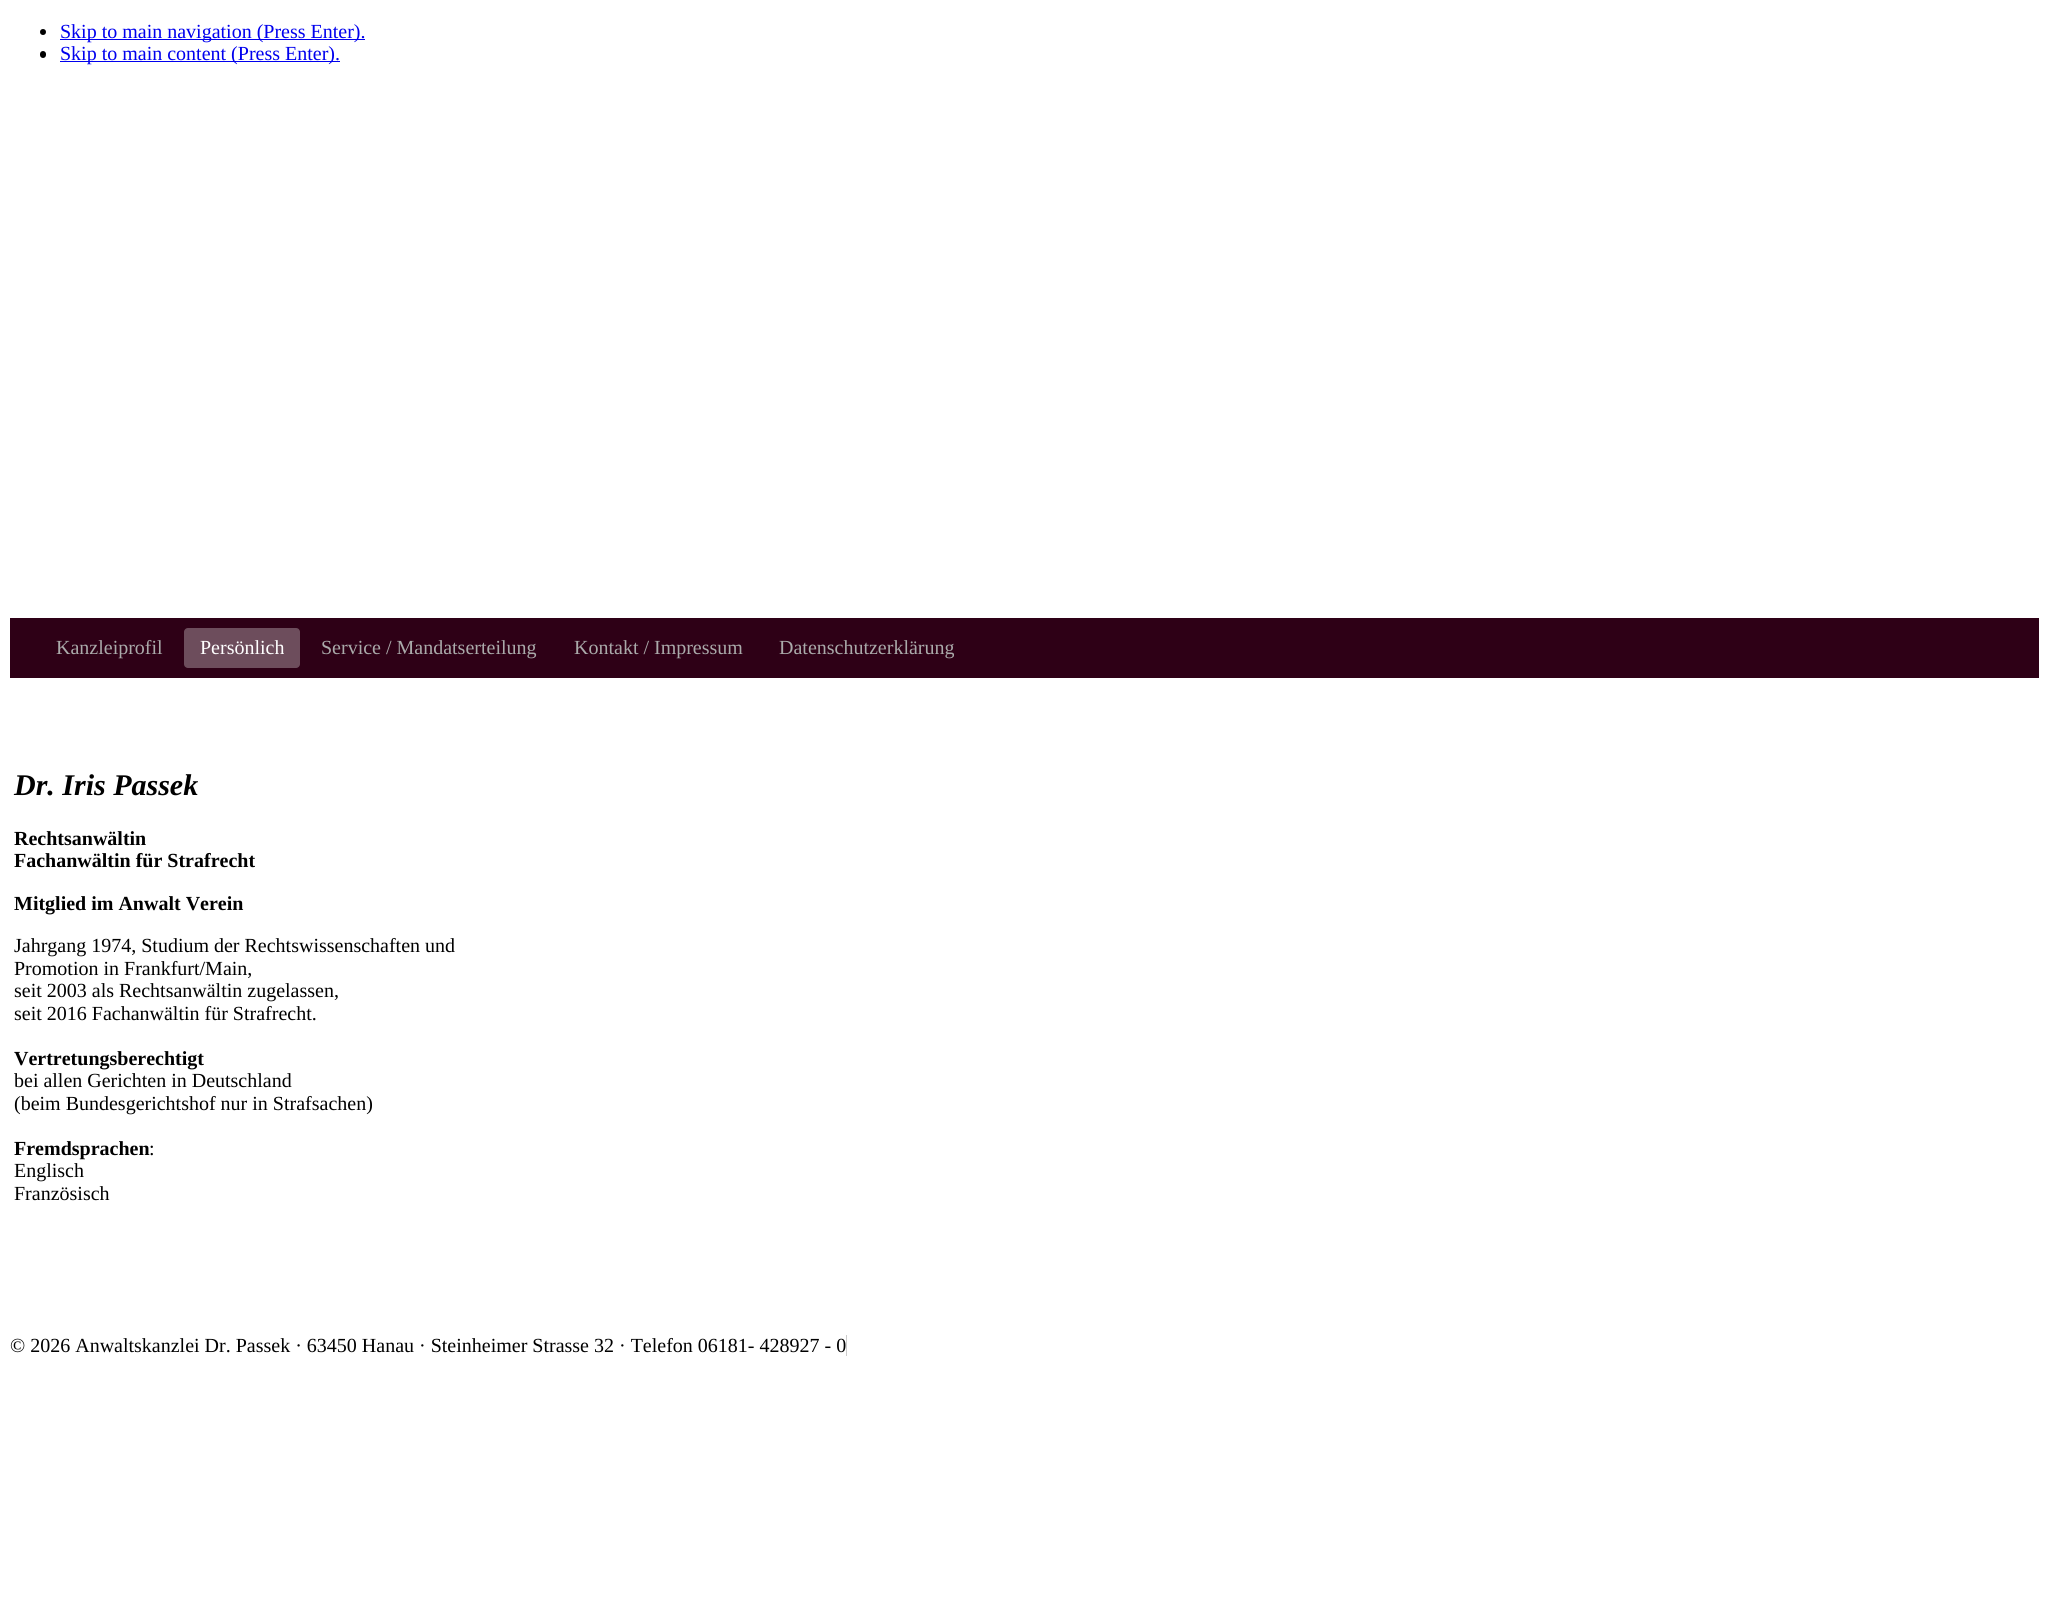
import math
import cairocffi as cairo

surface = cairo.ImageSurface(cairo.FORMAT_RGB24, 2048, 1611)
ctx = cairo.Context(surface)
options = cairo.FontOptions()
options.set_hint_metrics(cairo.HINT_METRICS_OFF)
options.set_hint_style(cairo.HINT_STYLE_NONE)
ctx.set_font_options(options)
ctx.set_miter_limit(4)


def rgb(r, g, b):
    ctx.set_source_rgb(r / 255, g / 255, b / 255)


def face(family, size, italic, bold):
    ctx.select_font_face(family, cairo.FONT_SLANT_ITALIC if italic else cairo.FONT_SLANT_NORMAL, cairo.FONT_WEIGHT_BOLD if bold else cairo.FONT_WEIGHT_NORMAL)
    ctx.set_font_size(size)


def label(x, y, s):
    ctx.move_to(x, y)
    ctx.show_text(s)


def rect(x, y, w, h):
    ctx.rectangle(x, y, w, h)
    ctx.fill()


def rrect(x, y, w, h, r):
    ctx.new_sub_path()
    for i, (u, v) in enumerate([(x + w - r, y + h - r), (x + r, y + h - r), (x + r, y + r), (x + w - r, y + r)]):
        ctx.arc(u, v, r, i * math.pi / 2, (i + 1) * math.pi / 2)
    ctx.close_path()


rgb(255, 255, 255)
ctx.paint()
rgb(0, 0, 0)
ctx.arc(43, 32, 3, 0, 2 * math.pi)
ctx.fill()
rgb(0, 0, 238)
rect(60, 39, 305, 1)
face('Liberation Serif', 20, 0, 0)
label(60, 38, 'Skip to main navigation (Press Enter).')
rgb(0, 0, 0)
rrect(40, 51, 6, 7, 3)
ctx.fill()
rgb(0, 0, 238)
rect(60, 61, 280, 1)
label(60, 60, 'Skip to main content (Press Enter).')
rgb(46, 0, 22)
rect(10, 618, 2029, 60)
rgb(170, 170, 170)
label(56, 654, 'Kanzleiprofil')
rgb(109, 77, 92)
rrect(184, 628, 116, 40, 4)
ctx.fill()
rgb(255, 255, 255)
label(200, 654, 'Persönlich')
rgb(170, 170, 170)
label(321, 654, 'Service / Mandatserteilung')
label(574, 654, 'Kontakt / Impressum')
label(779, 654, 'Datenschutzerklärung')
face('Liberation Serif', 30, 1, 1)
rgb(0, 0, 0)
label(14, 795, 'Dr. Iris Passek')
face('Liberation Serif', 20, 0, 1)
label(14, 845, 'Rechtsanwältin')
label(14, 867, 'Fachanwältin für Strafrecht')
label(14, 910, 'Mitglied im Anwalt Verein')
face('Liberation Serif', 20, 0, 0)
label(14, 952, 'Jahrgang 1974, Studium der Rechtswissenschaften und')
label(14, 975, 'Promotion in Frankfurt/Main,')
label(14, 997, 'seit 2003 als Rechtsanwältin zugelassen,')
label(14, 1020, 'seit 2016 Fachanwältin für Strafrecht.')
face('Liberation Serif', 20, 0, 1)
label(14, 1065, 'Vertretungsberechtigt')
face('Liberation Serif', 20, 0, 0)
label(14, 1087, 'bei allen Gerichten in Deutschland')
label(14, 1110, '(beim Bundesgerichtshof nur in Strafsachen)')
face('Liberation Serif', 20, 0, 1)
label(14, 1155, 'Fremdsprachen')
face('Liberation Serif', 20, 0, 0)
label(149, 1155, ':')
label(14, 1177, 'Englisch')
label(14, 1200, 'Französisch')
label(10, 1352, '© 2026 Anwaltskanzlei Dr. Passek · 63450 Hanau · Steinheimer Strasse 32 · Telefon 06181- 428927 - 0')
rgb(204, 204, 204)
rect(846, 1335, 1, 21)
surface.write_to_png('render.png')
